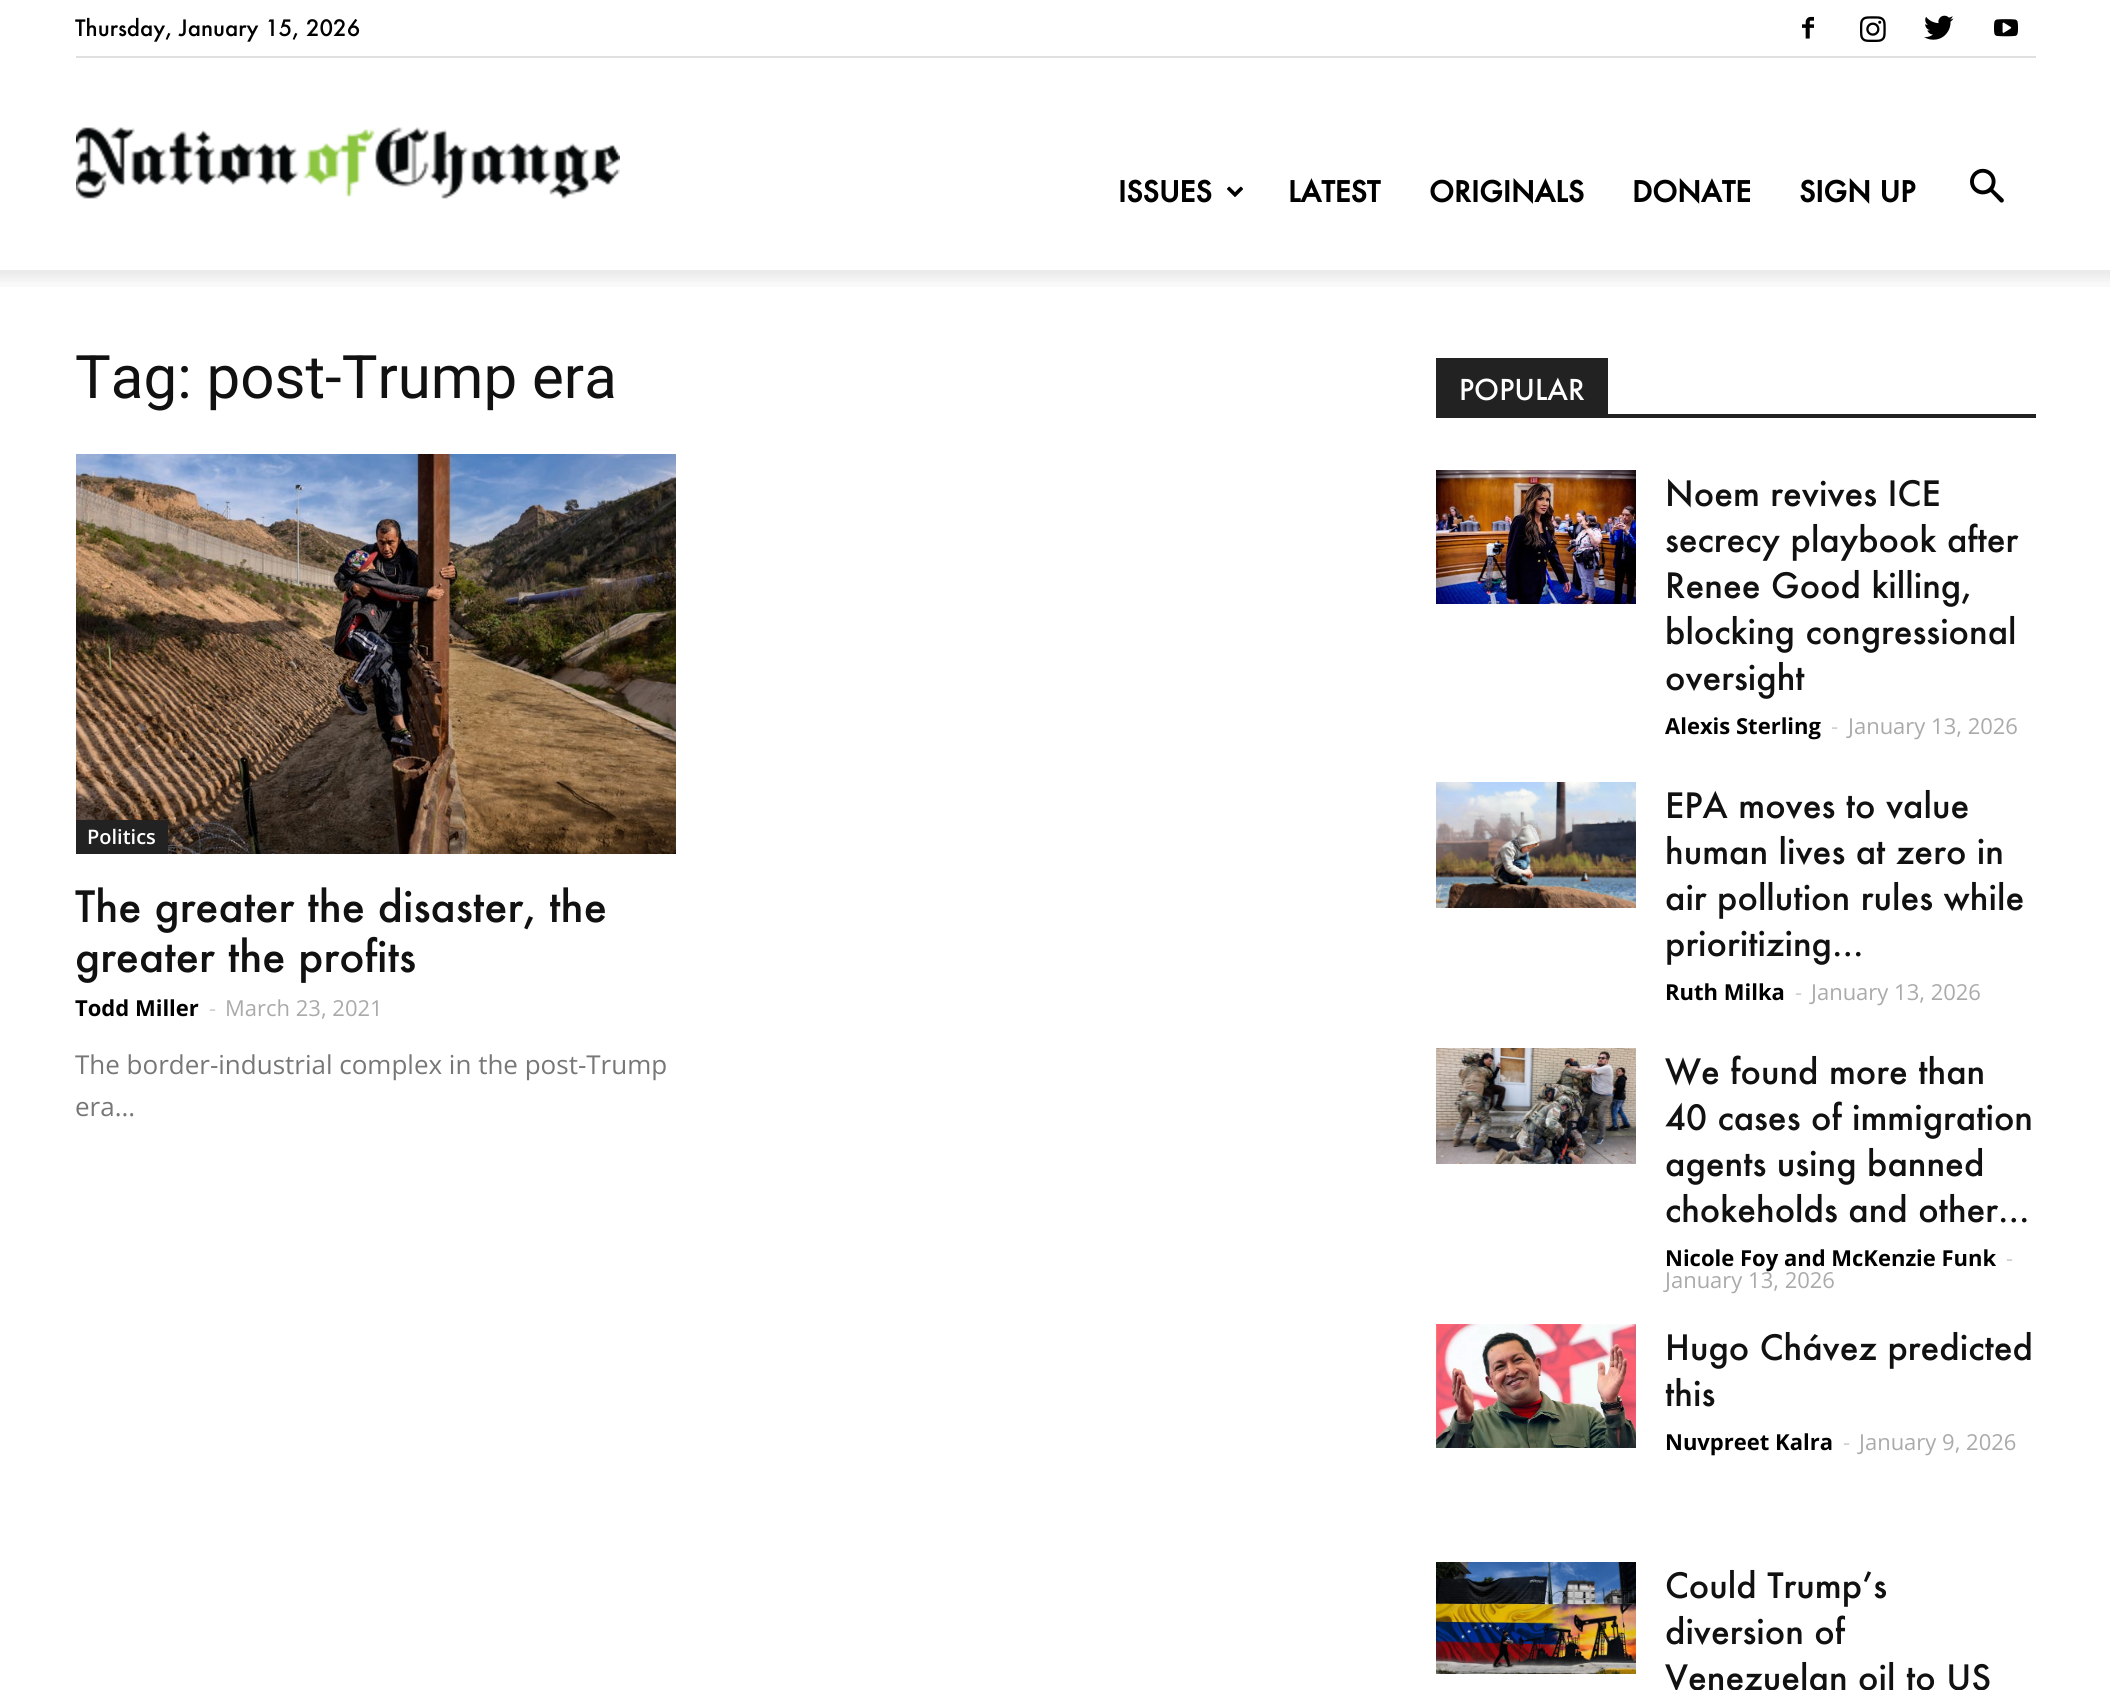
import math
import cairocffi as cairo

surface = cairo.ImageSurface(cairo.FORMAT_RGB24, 2110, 1690)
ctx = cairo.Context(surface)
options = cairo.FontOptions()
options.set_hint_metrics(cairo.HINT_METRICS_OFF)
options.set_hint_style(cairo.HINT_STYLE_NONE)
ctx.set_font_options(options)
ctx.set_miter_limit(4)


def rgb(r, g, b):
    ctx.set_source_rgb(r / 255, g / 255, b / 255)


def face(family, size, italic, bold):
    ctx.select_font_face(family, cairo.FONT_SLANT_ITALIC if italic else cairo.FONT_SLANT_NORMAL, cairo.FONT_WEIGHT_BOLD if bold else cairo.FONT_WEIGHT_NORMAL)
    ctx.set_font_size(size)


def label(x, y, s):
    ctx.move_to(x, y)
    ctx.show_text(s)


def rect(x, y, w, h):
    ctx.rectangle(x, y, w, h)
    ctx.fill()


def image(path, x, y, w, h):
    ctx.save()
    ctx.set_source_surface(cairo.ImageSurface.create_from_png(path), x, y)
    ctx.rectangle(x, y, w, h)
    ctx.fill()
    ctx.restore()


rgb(255, 255, 255)
ctx.paint()
rgb(224, 224, 224)
rect(76, 56, 1960, 2)
face('Futura Medium', 22, 0, 0)
rgb(0, 0, 0)
label(75, 36, 'Thursday, January 15, 2026')
image('image0.png', 1802, 16, 12, 23)
image('image1.png', 1860, 16, 26, 26)
image('image2.png', 1924, 15, 30, 25)
image('image3.png', 1994, 19, 24, 18)
image('image4.png', 76, 127, 544, 72)
face('Futura', 28, 0, 1)
label(1118, 202, 'ISSUES')
image('image5.png', 1227, 186, 16, 11)
label(1288, 202, 'LATEST')
label(1429, 202, 'ORIGINALS')
label(1632, 202, 'DONATE')
label(1799, 202, 'SIGN UP')
image('image6.png', 1970, 168, 34, 35)
image('image7.png', 0, 270, 2110, 17)
face('Roboto', 60, 0, 0)
rgb(17, 17, 17)
label(75, 398, 'Tag: post-Trump era')
image('image8.png', 76, 454, 600, 400)
rgb(34, 34, 34)
rect(76, 820, 92, 34)
face('Open Sans SemiBold', 20, 0, 0)
rgb(255, 255, 255)
label(87, 844, 'Politics')
face('Futura Medium', 42, 0, 0)
rgb(17, 17, 17)
label(75, 922, 'The greater the disaster, the')
label(75, 972, 'greater the profits')
face('Open Sans', 22, 0, 1)
rgb(0, 0, 0)
label(75, 1016, 'Todd Miller')
face('Open Sans', 22, 0, 0)
rgb(204, 204, 204)
label(209, 1016, '-')
rgb(170, 170, 170)
label(225, 1016, 'March 23, 2021')
face('Open Sans', 26, 0, 0)
rgb(119, 119, 119)
label(75, 1074, 'The border-industrial complex in the post-Trump')
label(75, 1116, 'era...')
rgb(34, 34, 34)
rect(1436, 414, 600, 4)
rect(1436, 358, 172, 56)
face('Futura Medium', 28, 0, 0)
rgb(255, 255, 255)
label(1459, 400, 'POPULAR')
image('image9.png', 1436, 470, 200, 134)
face('Futura Medium', 34, 0, 0)
rgb(17, 17, 17)
label(1665, 506, 'Noem revives ICE')
label(1665, 552, 'secrecy playbook after')
label(1665, 598, 'Renee Good killing,')
label(1665, 644, 'blocking congressional')
label(1665, 690, 'oversight')
face('Open Sans', 22, 0, 1)
rgb(0, 0, 0)
label(1665, 734, 'Alexis Sterling')
face('Open Sans', 22, 0, 0)
rgb(204, 204, 204)
label(1831, 734, '-')
rgb(170, 170, 170)
label(1848, 734, 'January 13, 2026')
image('image10.png', 1436, 782, 200, 126)
face('Futura Medium', 34, 0, 0)
rgb(17, 17, 17)
label(1665, 818, 'EPA moves to value')
label(1665, 864, 'human lives at zero in')
label(1665, 910, 'air pollution rules while')
label(1665, 956, 'prioritizing...')
face('Open Sans', 22, 0, 1)
rgb(0, 0, 0)
label(1665, 1000, 'Ruth Milka')
face('Open Sans', 22, 0, 0)
rgb(204, 204, 204)
label(1795, 1000, '-')
rgb(170, 170, 170)
label(1811, 1000, 'January 13, 2026')
image('image11.png', 1436, 1048, 200, 116)
face('Futura Medium', 34, 0, 0)
rgb(17, 17, 17)
label(1665, 1084, 'We found more than')
label(1665, 1130, '40 cases of immigration')
label(1665, 1176, 'agents using banned')
label(1665, 1222, 'chokeholds and other...')
face('Open Sans', 22, 0, 1)
rgb(0, 0, 0)
label(1665, 1266, 'Nicole Foy and McKenzie Funk')
face('Open Sans', 22, 0, 0)
rgb(204, 204, 204)
label(2006, 1266, '-')
rgb(170, 170, 170)
label(1665, 1288, 'January 13, 2026')
image('image12.png', 1436, 1324, 200, 124)
face('Futura Medium', 34, 0, 0)
rgb(17, 17, 17)
label(1665, 1360, 'Hugo Chávez predicted')
label(1665, 1406, 'this')
face('Open Sans', 22, 0, 1)
rgb(0, 0, 0)
label(1665, 1450, 'Nuvpreet Kalra')
face('Open Sans', 22, 0, 0)
rgb(204, 204, 204)
label(1843, 1450, '-')
rgb(170, 170, 170)
label(1859, 1450, 'January 9, 2026')
image('image13.png', 1436, 1562, 200, 112)
face('Futura Medium', 34, 0, 0)
rgb(17, 17, 17)
label(1665, 1598, 'Could Trump’s')
label(1665, 1644, 'diversion of')
label(1665, 1690, 'Venezuelan oil to US')
surface.write_to_png('render.png')
